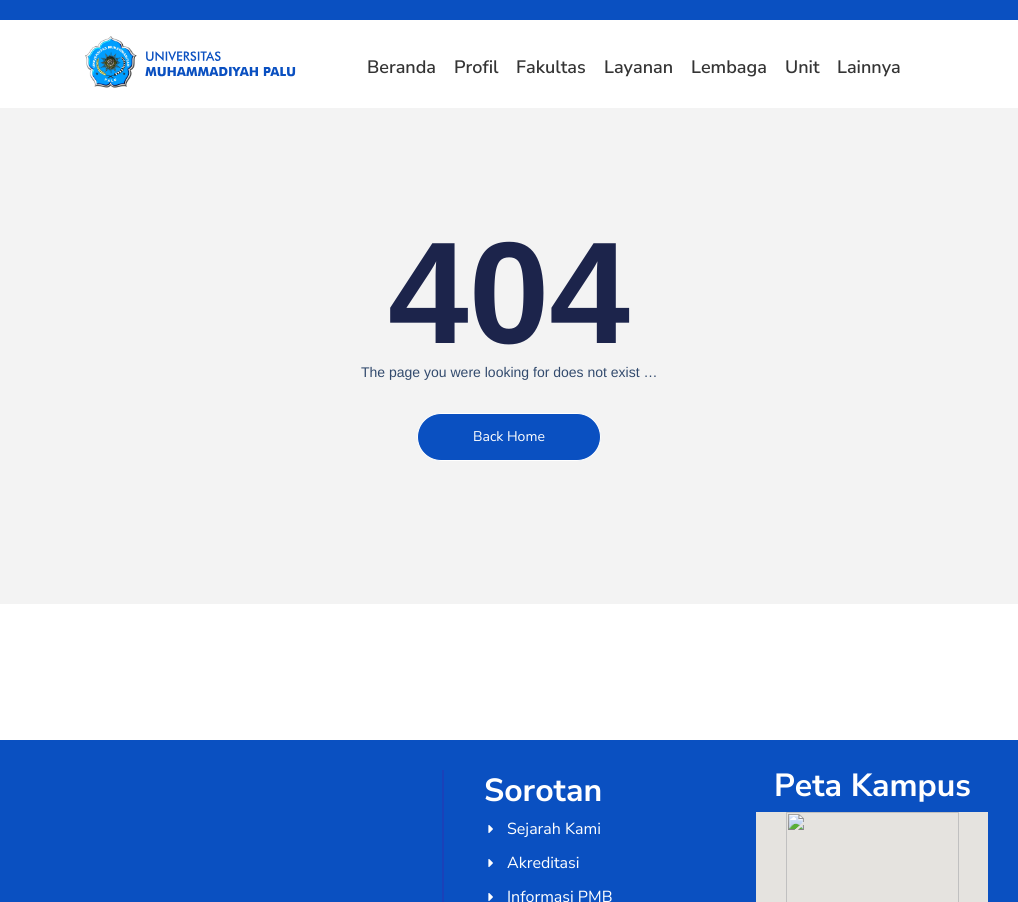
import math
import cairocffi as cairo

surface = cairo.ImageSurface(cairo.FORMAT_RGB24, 1018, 902)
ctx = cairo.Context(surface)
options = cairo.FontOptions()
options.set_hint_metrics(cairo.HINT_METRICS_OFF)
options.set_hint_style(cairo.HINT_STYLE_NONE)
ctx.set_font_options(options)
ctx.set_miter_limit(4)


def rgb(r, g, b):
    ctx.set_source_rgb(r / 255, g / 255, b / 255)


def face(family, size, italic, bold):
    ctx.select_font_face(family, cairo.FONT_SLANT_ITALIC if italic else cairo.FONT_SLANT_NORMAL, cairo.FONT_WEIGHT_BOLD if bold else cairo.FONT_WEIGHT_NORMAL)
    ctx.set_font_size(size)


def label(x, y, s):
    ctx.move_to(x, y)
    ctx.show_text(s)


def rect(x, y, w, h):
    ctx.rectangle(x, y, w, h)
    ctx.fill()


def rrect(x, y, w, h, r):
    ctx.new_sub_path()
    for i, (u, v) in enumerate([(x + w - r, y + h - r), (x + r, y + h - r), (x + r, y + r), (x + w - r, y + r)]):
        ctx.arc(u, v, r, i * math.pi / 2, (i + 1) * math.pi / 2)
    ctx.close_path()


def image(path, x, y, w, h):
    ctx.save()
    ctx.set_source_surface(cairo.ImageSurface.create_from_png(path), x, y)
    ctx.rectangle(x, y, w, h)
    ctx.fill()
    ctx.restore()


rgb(255, 255, 255)
ctx.paint()
rgb(10, 80, 193)
rect(0, 0, 1018, 20)
image('image0.png', 85, 36, 211, 52)
face('Nunito Sans SemiBold', 18, 0, 0)
rgb(52, 52, 52)
label(367, 73, 'Beranda')
label(454, 73, 'Profil')
label(516, 73, 'Fakultas')
label(604, 73, 'Layanan')
label(691, 73, 'Lembaga')
label(785, 73, 'Unit')
label(837, 73, 'Lainnya')
rgb(243, 243, 243)
rect(0, 108, 1018, 496)
face('Liberation Sans', 145, 0, 1)
rgb(28, 36, 75)
label(388, 343, '404')
face('Liberation Sans', 14, 0, 0)
rgb(50, 74, 109)
label(361, 377, 'The page you were looking for does not exist …')
rgb(10, 80, 193)
rrect(417.5, 413.5, 183, 47, 23.5)
ctx.fill_preserve()
rgb(255, 255, 255)
ctx.set_line_width(1)
ctx.stroke()
face('Nunito Sans', 14, 0, 0)
label(473, 441, 'Back Home')
rgb(10, 80, 193)
rect(0, 740, 1018, 162)
rgb(26, 66, 185)
rect(442, 770, 2, 132)
face('Nunito Sans', 32, 0, 1)
rgb(255, 255, 255)
label(484, 801, 'Sorotan')
image('image1.png', 488, 825, 5, 8)
face('Nunito Sans', 16, 0, 0)
label(507, 834, 'Sejarah Kami')
image('image1.png', 488, 859, 5, 8)
label(507, 868, 'Akreditasi')
image('image1.png', 488, 893, 5, 8)
label(507, 902, 'Informasi PMB')
face('Nunito Sans', 32, 0, 1)
label(774, 796, 'Peta Kampus')
image('image2.png', 756, 812, 232, 90)
surface.write_to_png('render.png')
